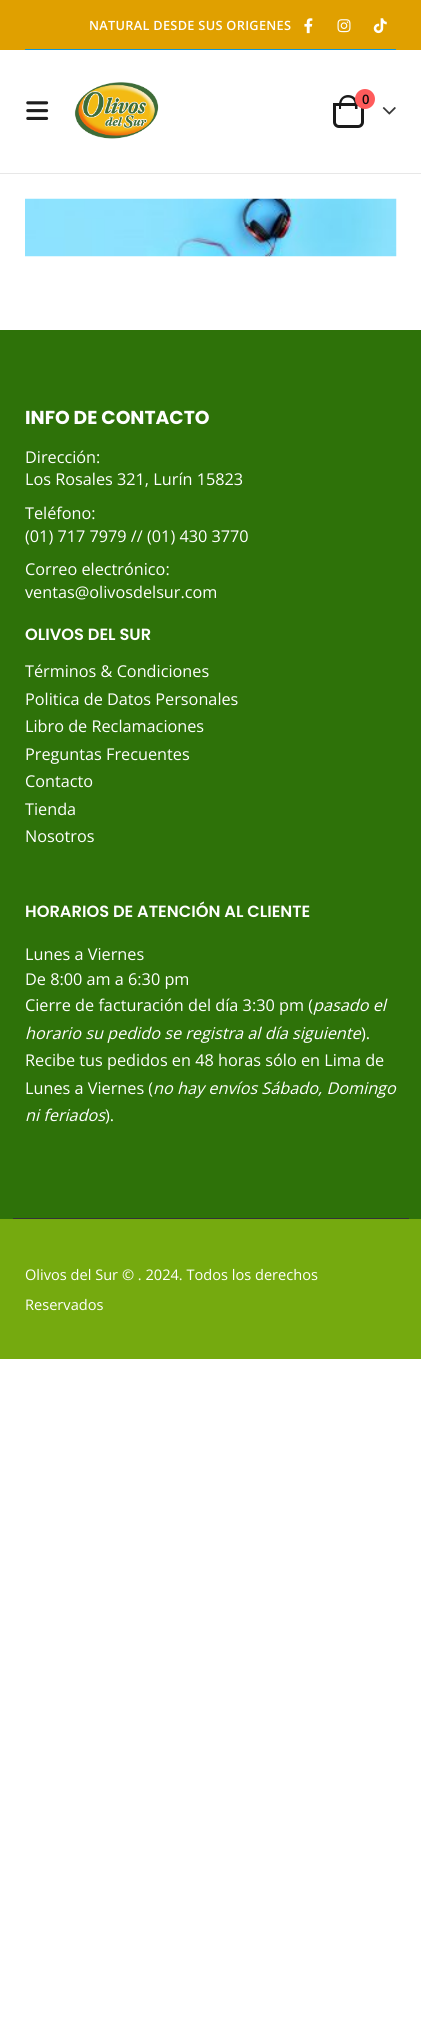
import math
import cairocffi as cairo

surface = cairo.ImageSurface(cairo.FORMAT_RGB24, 421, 2027)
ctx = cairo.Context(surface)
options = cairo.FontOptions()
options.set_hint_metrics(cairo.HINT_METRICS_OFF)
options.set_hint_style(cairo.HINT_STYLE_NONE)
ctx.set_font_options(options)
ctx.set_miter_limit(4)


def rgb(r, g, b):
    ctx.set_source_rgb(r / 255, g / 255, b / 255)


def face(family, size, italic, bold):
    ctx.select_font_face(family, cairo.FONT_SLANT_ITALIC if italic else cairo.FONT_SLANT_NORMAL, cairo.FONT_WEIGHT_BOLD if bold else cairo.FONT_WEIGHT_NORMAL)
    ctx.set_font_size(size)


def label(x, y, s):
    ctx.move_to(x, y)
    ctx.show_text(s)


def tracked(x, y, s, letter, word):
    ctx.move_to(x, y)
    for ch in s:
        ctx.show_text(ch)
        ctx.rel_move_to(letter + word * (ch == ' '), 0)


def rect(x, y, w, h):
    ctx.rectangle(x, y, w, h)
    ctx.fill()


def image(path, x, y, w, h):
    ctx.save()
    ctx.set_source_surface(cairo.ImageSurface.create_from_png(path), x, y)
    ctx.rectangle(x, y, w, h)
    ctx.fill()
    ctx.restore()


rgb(255, 255, 255)
ctx.paint()
rgb(231, 231, 231)
rect(0, 173, 421, 1)
rgb(224, 160, 0)
rect(0, 0, 421, 50)
face('Open Sans SemiBold', 12.75, 0, 0)
rgb(255, 255, 255)
tracked(89, 30, 'NATURAL DESDE SUS ORIGENES', 0.3, 0)
image('image0.png', 304, 18, 9, 16)
image('image1.png', 337, 19, 14, 14)
image('image2.png', 373, 18, 14, 16)
rgb(14, 149, 216)
rect(25, 49, 371, 1)
image('image3.png', 26, 101, 23, 19)
image('image4.png', 74, 82, 85, 57)
ctx.new_path()
ctx.move_to(334.5, 104.5)
ctx.line_to(362.5, 104.5)
ctx.line_to(362.5, 122)
ctx.curve_to(362.5, 124.5, 360.5, 126.5, 358, 126.5)
ctx.line_to(339, 126.5)
ctx.curve_to(336.5, 126.5, 334.5, 124.5, 334.5, 122)
ctx.close_path()
rgb(26, 26, 26)
ctx.set_line_width(3)
ctx.stroke()
ctx.set_fill_rule(cairo.FILL_RULE_EVEN_ODD)
ctx.new_path()
ctx.move_to(348, 95)
ctx.curve_to(353.5, 95, 357.5, 99, 357.5, 104.5)
ctx.line_to(357.5, 109)
ctx.line_to(339, 109)
ctx.line_to(339, 104.5)
ctx.curve_to(339, 99, 343, 95, 348, 95)
ctx.close_path()
ctx.move_to(348, 97.5)
ctx.curve_to(355, 97.5, 355, 104, 355, 109)
ctx.line_to(341, 109)
ctx.curve_to(341, 104, 341, 97.5, 348, 97.5)
ctx.close_path()
ctx.fill()
rgb(255, 91, 91)
ctx.arc(365, 99, 10, 0, 2 * math.pi)
ctx.fill()
face('Open Sans SemiBold', 13, 0, 0)
rgb(12, 12, 12)
label(362, 104, '0')
image('image5.png', 382, 107, 14, 8)
image('image6.png', 25, 198, 372, 59)
rgb(46, 114, 9)
rect(0, 330, 421, 889)
face('Poppins', 18.75, 0, 1)
rgb(255, 255, 255)
label(25, 424, 'INFO DE CONTACTO')
face('Open Sans', 16.25, 0, 0)
label(25, 463, 'Dirección:')
label(25, 485, 'Los Rosales 321, Lurín 15823')
label(25, 519, 'Teléfono:')
label(25, 542, '(01) 717 7979 // (01) 430 3770')
label(25, 575, 'Correo electrónico:')
label(25, 598, 'ventas@olivosdelsur.com')
face('Poppins SemiBold', 16.25, 0, 0)
label(25, 640, 'OLIVOS DEL SUR')
face('Open Sans', 16.25, 0, 0)
label(25, 677, 'Términos & Condiciones')
label(25, 705, 'Politica de Datos Personales')
label(25, 732, 'Libro de Reclamaciones')
label(25, 760, 'Preguntas Frecuentes')
label(25, 787, 'Contacto')
label(25, 815, 'Tienda')
label(25, 842, 'Nosotros')
face('Poppins SemiBold', 16.25, 0, 0)
label(25, 917, 'HORARIOS DE ATENCIÓN AL CLIENTE')
face('Open Sans', 16.25, 0, 0)
label(25, 960, 'Lunes a Viernes')
label(25, 985, 'De 8:00 am a 6:30 pm')
label(25, 1011, 'Cierre de facturación del día 3:30 pm (')
face('Open Sans', 16.25, 1, 0)
label(313, 1011, 'pasado el')
label(25, 1039, 'horario su pedido se registra al día siguiente')
face('Open Sans', 16.25, 0, 0)
label(361, 1039, ').')
label(25, 1066, 'Recibe tus pedidos en 48 horas sólo en Lima de')
label(25, 1094, 'Lunes a Viernes (')
face('Open Sans', 16.25, 1, 0)
label(153, 1094, 'no hay envíos Sábado, Domingo')
label(25, 1121, 'ni feriados')
face('Open Sans', 16.25, 0, 0)
label(105, 1121, ').')
rgb(49, 52, 56)
rect(13, 1218, 396, 1)
rgb(117, 170, 15)
rect(0, 1219, 421, 140)
face('Open Sans', 14.6, 0, 0)
rgb(255, 255, 255)
label(25, 1280, 'Olivos del Sur © . 2024. Todos los derechos')
label(25, 1310, 'Reservados')
surface.write_to_png('render.png')
